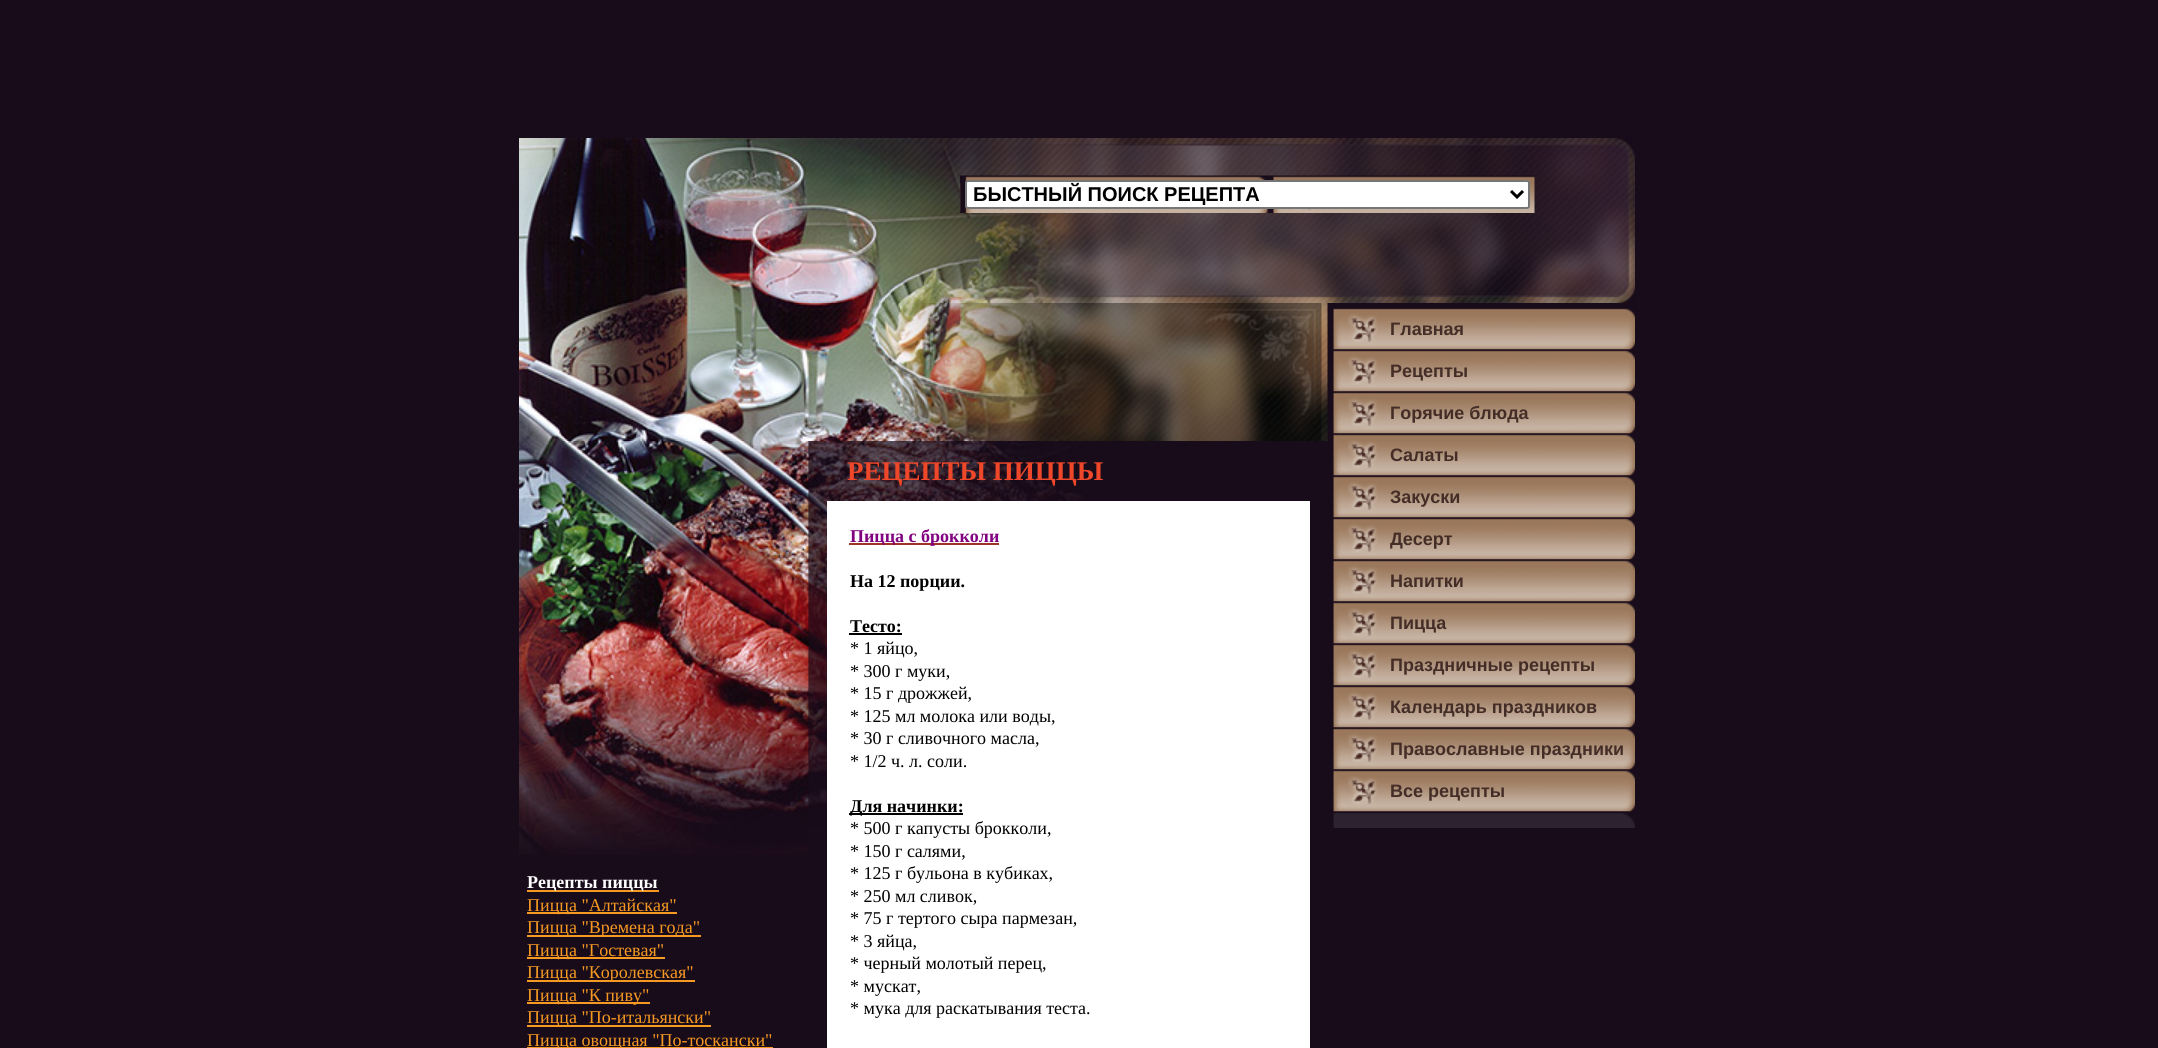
import math
import cairocffi as cairo

surface = cairo.ImageSurface(cairo.FORMAT_RGB24, 2158, 1048)
ctx = cairo.Context(surface)
options = cairo.FontOptions()
options.set_hint_metrics(cairo.HINT_METRICS_OFF)
options.set_hint_style(cairo.HINT_STYLE_NONE)
ctx.set_font_options(options)
ctx.set_miter_limit(4)


def rgb(r, g, b):
    ctx.set_source_rgb(r / 255, g / 255, b / 255)


def face(family, size, italic, bold):
    ctx.select_font_face(family, cairo.FONT_SLANT_ITALIC if italic else cairo.FONT_SLANT_NORMAL, cairo.FONT_WEIGHT_BOLD if bold else cairo.FONT_WEIGHT_NORMAL)
    ctx.set_font_size(size)


def label(x, y, s):
    ctx.move_to(x, y)
    ctx.show_text(s)


def rect(x, y, w, h):
    ctx.rectangle(x, y, w, h)
    ctx.fill()


def rrect(x, y, w, h, r):
    ctx.new_sub_path()
    for i, (u, v) in enumerate([(x + w - r, y + h - r), (x + r, y + h - r), (x + r, y + r), (x + w - r, y + r)]):
        ctx.arc(u, v, r, i * math.pi / 2, (i + 1) * math.pi / 2)
    ctx.close_path()


def image(path, x, y, w, h):
    ctx.save()
    ctx.set_source_surface(cairo.ImageSurface.create_from_png(path), x, y)
    ctx.rectangle(x, y, w, h)
    ctx.fill()
    ctx.restore()


rgb(24, 11, 26)
ctx.paint()
image('image0.png', 519, 138, 1116, 165)
image('image1.png', 519, 303, 809, 138)
image('image3.png', 808, 441, 280, 389)
image('image2.png', 519, 441, 290, 414)
rgb(246, 153, 34)
rect(527, 890, 132, 2)
face('Liberation Serif', 18, 0, 1)
rgb(255, 255, 255)
label(527, 888, 'Рецепты пиццы')
rgb(246, 153, 34)
rect(527, 912, 150, 2)
face('Liberation Serif', 18, 0, 0)
label(527, 911, 'Пицца "Алтайская"')
rect(527, 935, 174, 2)
label(527, 933, 'Пицца "Времена года"')
rect(527, 957, 138, 2)
label(527, 956, 'Пицца "Гостевая"')
rect(527, 980, 168, 2)
label(527, 978, 'Пицца "Королевская"')
rect(527, 1002, 123, 2)
label(527, 1001, 'Пицца "К пиву"')
rect(527, 1025, 184, 2)
label(527, 1023, 'Пицца "По-итальянски"')
rect(527, 1047, 246, 1)
label(527, 1046, 'Пицца овощная "По-тоскански"')
face('Liberation Serif', 27, 0, 1)
rgb(239, 71, 41)
label(847, 480, 'РЕЦЕПТЫ ПИЦЦЫ')
rgb(255, 255, 255)
rect(827, 501, 483, 547)
rgb(159, 51, 39)
rect(849, 543, 150, 2)
face('Liberation Serif', 18, 0, 1)
rgb(128, 0, 128)
label(850, 542, 'Пицца с брокколи')
rgb(0, 0, 0)
label(850, 587, 'На 12 порции.')
label(850, 632, 'Тесто:')
rect(849, 633, 53, 2)
face('Liberation Serif', 18, 0, 0)
label(850, 654, '* 1 яйцо,')
label(850, 677, '* 300 г муки,')
label(850, 699, '* 15 г дрожжей,')
label(850, 722, '* 125 мл молока или воды,')
label(850, 744, '* 30 г сливочного масла,')
label(850, 767, '* 1/2 ч. л. соли.')
rect(849, 813, 114, 2)
face('Liberation Serif', 18, 0, 1)
label(850, 812, 'Для начинки:')
face('Liberation Serif', 18, 0, 0)
label(850, 834, '* 500 г капусты брокколи,')
label(850, 857, '* 150 г салями,')
label(850, 879, '* 125 г бульона в кубиках,')
label(850, 902, '* 250 мл сливок,')
label(850, 924, '* 75 г тертого сыра пармезан,')
label(850, 947, '* 3 яйца,')
label(850, 969, '* черный молотый перец,')
label(850, 992, '* мускат,')
label(850, 1014, '* мука для раскатывания теста.')
image('image4.png', 1333, 308, 302, 42)
image('image5.png', 960, 175, 575, 38)
rgb(255, 255, 255)
rrect(966, 181, 563, 27, 2)
ctx.fill_preserve()
rgb(118, 118, 118)
ctx.stroke()
ctx.new_path()
ctx.move_to(1511, 191)
ctx.line_to(1517, 197)
ctx.line_to(1523, 191)
rgb(0, 0, 0)
ctx.set_line_width(3)
ctx.stroke()
face('Liberation Sans', 20, 0, 1)
label(973, 201, 'БЫСТНЫЙ ПОИСК РЕЦЕПТА')
face('Liberation Sans', 18, 0, 1)
rgb(68, 45, 39)
label(1390, 335, 'Главная')
image('image6.png', 1333, 349, 302, 43)
label(1390, 377, 'Рецепты')
image('image6.png', 1333, 391, 302, 43)
label(1390, 419, 'Горячие блюда')
image('image6.png', 1333, 433, 302, 43)
label(1390, 461, 'Салаты')
image('image6.png', 1333, 475, 302, 43)
label(1390, 503, 'Закуски')
image('image6.png', 1333, 517, 302, 43)
label(1390, 545, 'Десерт')
image('image6.png', 1333, 559, 302, 43)
label(1390, 587, 'Напитки')
image('image6.png', 1333, 601, 302, 43)
label(1390, 629, 'Пицца')
image('image6.png', 1333, 643, 302, 43)
label(1390, 671, 'Праздничные рецепты')
image('image6.png', 1333, 685, 302, 43)
label(1390, 713, 'Календарь праздников')
image('image6.png', 1333, 727, 302, 43)
label(1390, 755, 'Православные праздники')
image('image6.png', 1333, 769, 302, 43)
label(1390, 797, 'Все рецепты')
image('image7.png', 1333, 811, 302, 17)
surface.write_to_png('render.png')
